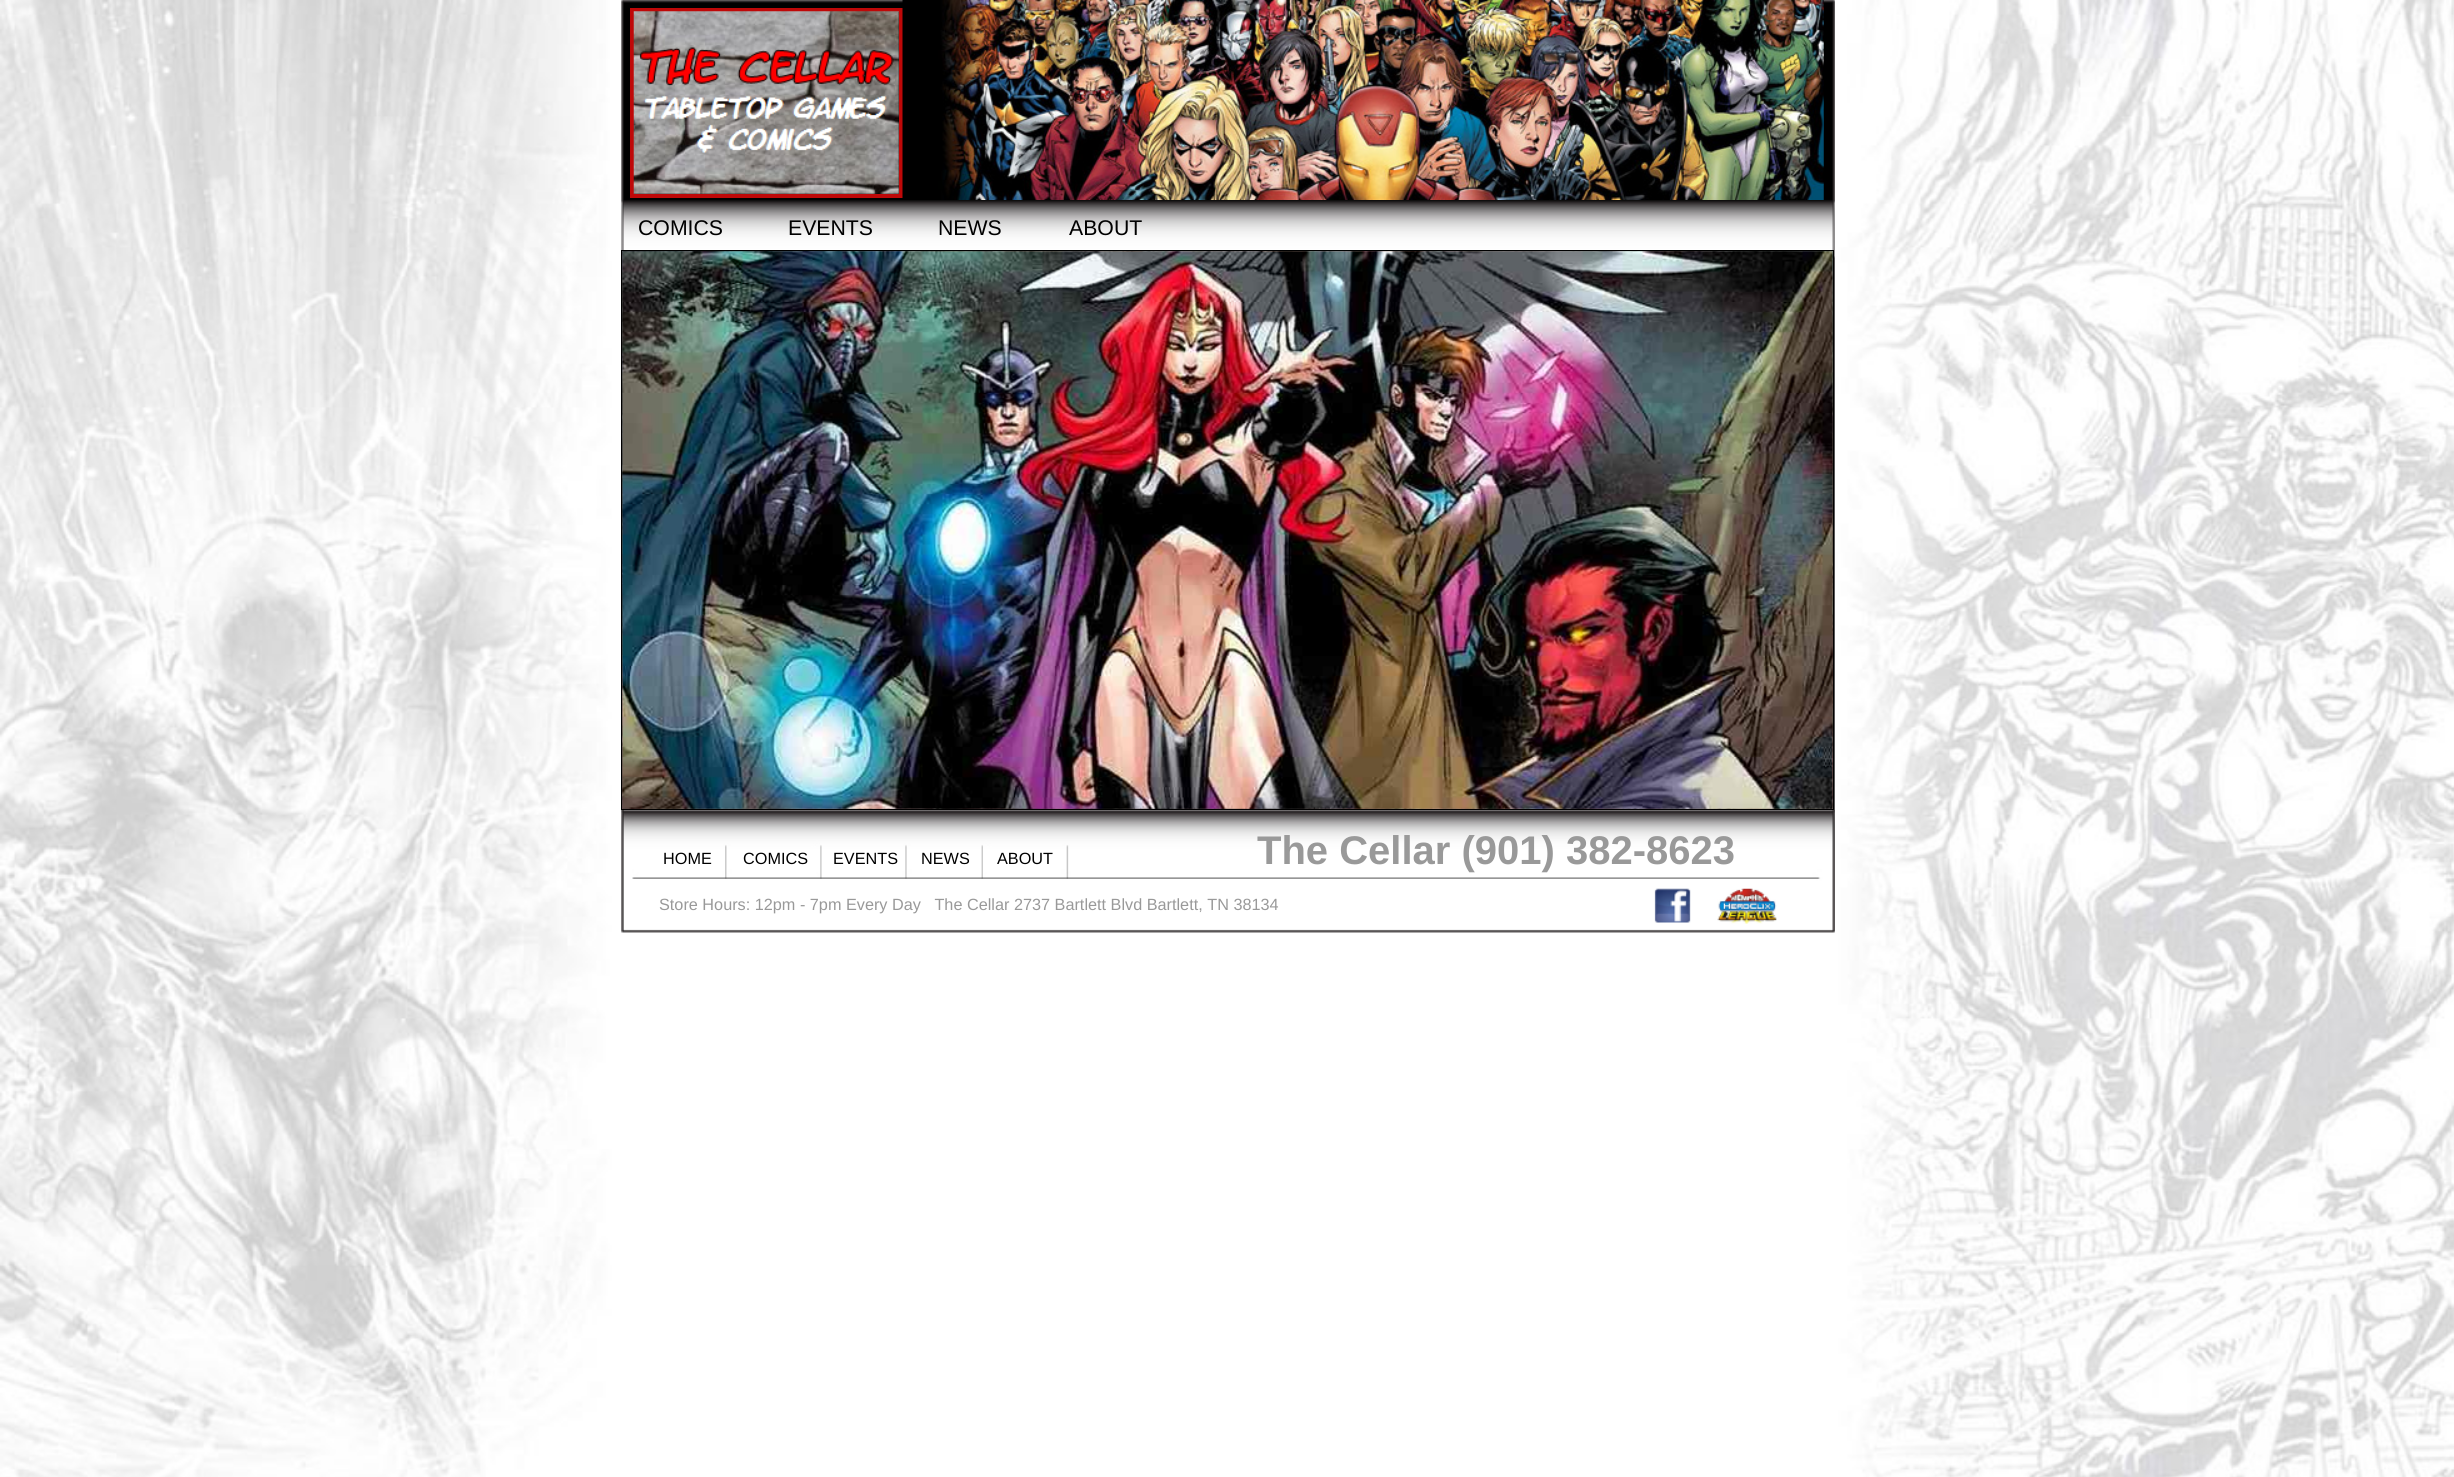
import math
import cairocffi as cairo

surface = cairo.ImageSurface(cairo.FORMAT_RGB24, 2454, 1477)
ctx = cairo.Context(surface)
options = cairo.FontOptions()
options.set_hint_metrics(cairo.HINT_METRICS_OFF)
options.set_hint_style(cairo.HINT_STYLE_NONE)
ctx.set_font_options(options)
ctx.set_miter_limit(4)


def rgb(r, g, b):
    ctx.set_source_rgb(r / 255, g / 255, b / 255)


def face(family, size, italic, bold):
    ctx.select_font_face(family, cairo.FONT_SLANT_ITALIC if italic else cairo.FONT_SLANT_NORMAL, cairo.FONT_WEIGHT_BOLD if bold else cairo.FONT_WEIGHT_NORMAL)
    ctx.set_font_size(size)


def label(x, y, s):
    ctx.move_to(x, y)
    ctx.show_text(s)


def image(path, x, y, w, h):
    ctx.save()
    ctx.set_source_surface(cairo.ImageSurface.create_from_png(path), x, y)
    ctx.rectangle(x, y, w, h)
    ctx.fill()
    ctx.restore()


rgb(255, 255, 255)
ctx.paint()
image('image0.png', 0, 0, 2454, 1477)
image('image1.png', 621, 0, 1214, 933)
ctx.rectangle(632, 10, 269, 186)
rgb(191, 8, 8)
ctx.set_line_width(4)
ctx.stroke()
image('image2.png', 633, 11, 266, 183)
image('image3.png', 902, 0, 922, 200)
face('Liberation Sans', 21.25, 0, 0)
rgb(0, 0, 0)
label(638, 235, 'COMICS')
label(788, 235, 'EVENTS')
label(938, 235, 'NEWS')
label(1069, 235, 'ABOUT')
ctx.rectangle(621.5, 250.5, 1212, 559)
ctx.set_line_width(1)
ctx.stroke()
image('image4.png', 622, 251, 1211, 558)
image('image5.png', 622, 251, 1211, 558)
image('image6.png', 622, 251, 1211, 558)
image('image7.png', 622, 251, 1211, 558)
face('Liberation Sans', 16.25, 0, 0)
label(663, 864, 'HOME')
label(743, 864, 'COMICS')
label(833, 864, 'EVENTS')
label(921, 864, 'NEWS')
label(997, 864, 'ABOUT')
face('Liberation Sans', 40, 0, 1)
rgb(153, 153, 153)
label(1257, 864, 'The Cellar (901) 382-8623')
face('Liberation Sans', 16.25, 0, 0)
label(659, 910, 'Store Hours: 12pm - 7pm Every Day   The Cellar 2737 Bartlett Blvd Bartlett, TN 38134')
image('image8.png', 1654, 888, 37, 35)
image('image9.png', 1717, 888, 60, 36)
surface.write_to_png('render.png')
